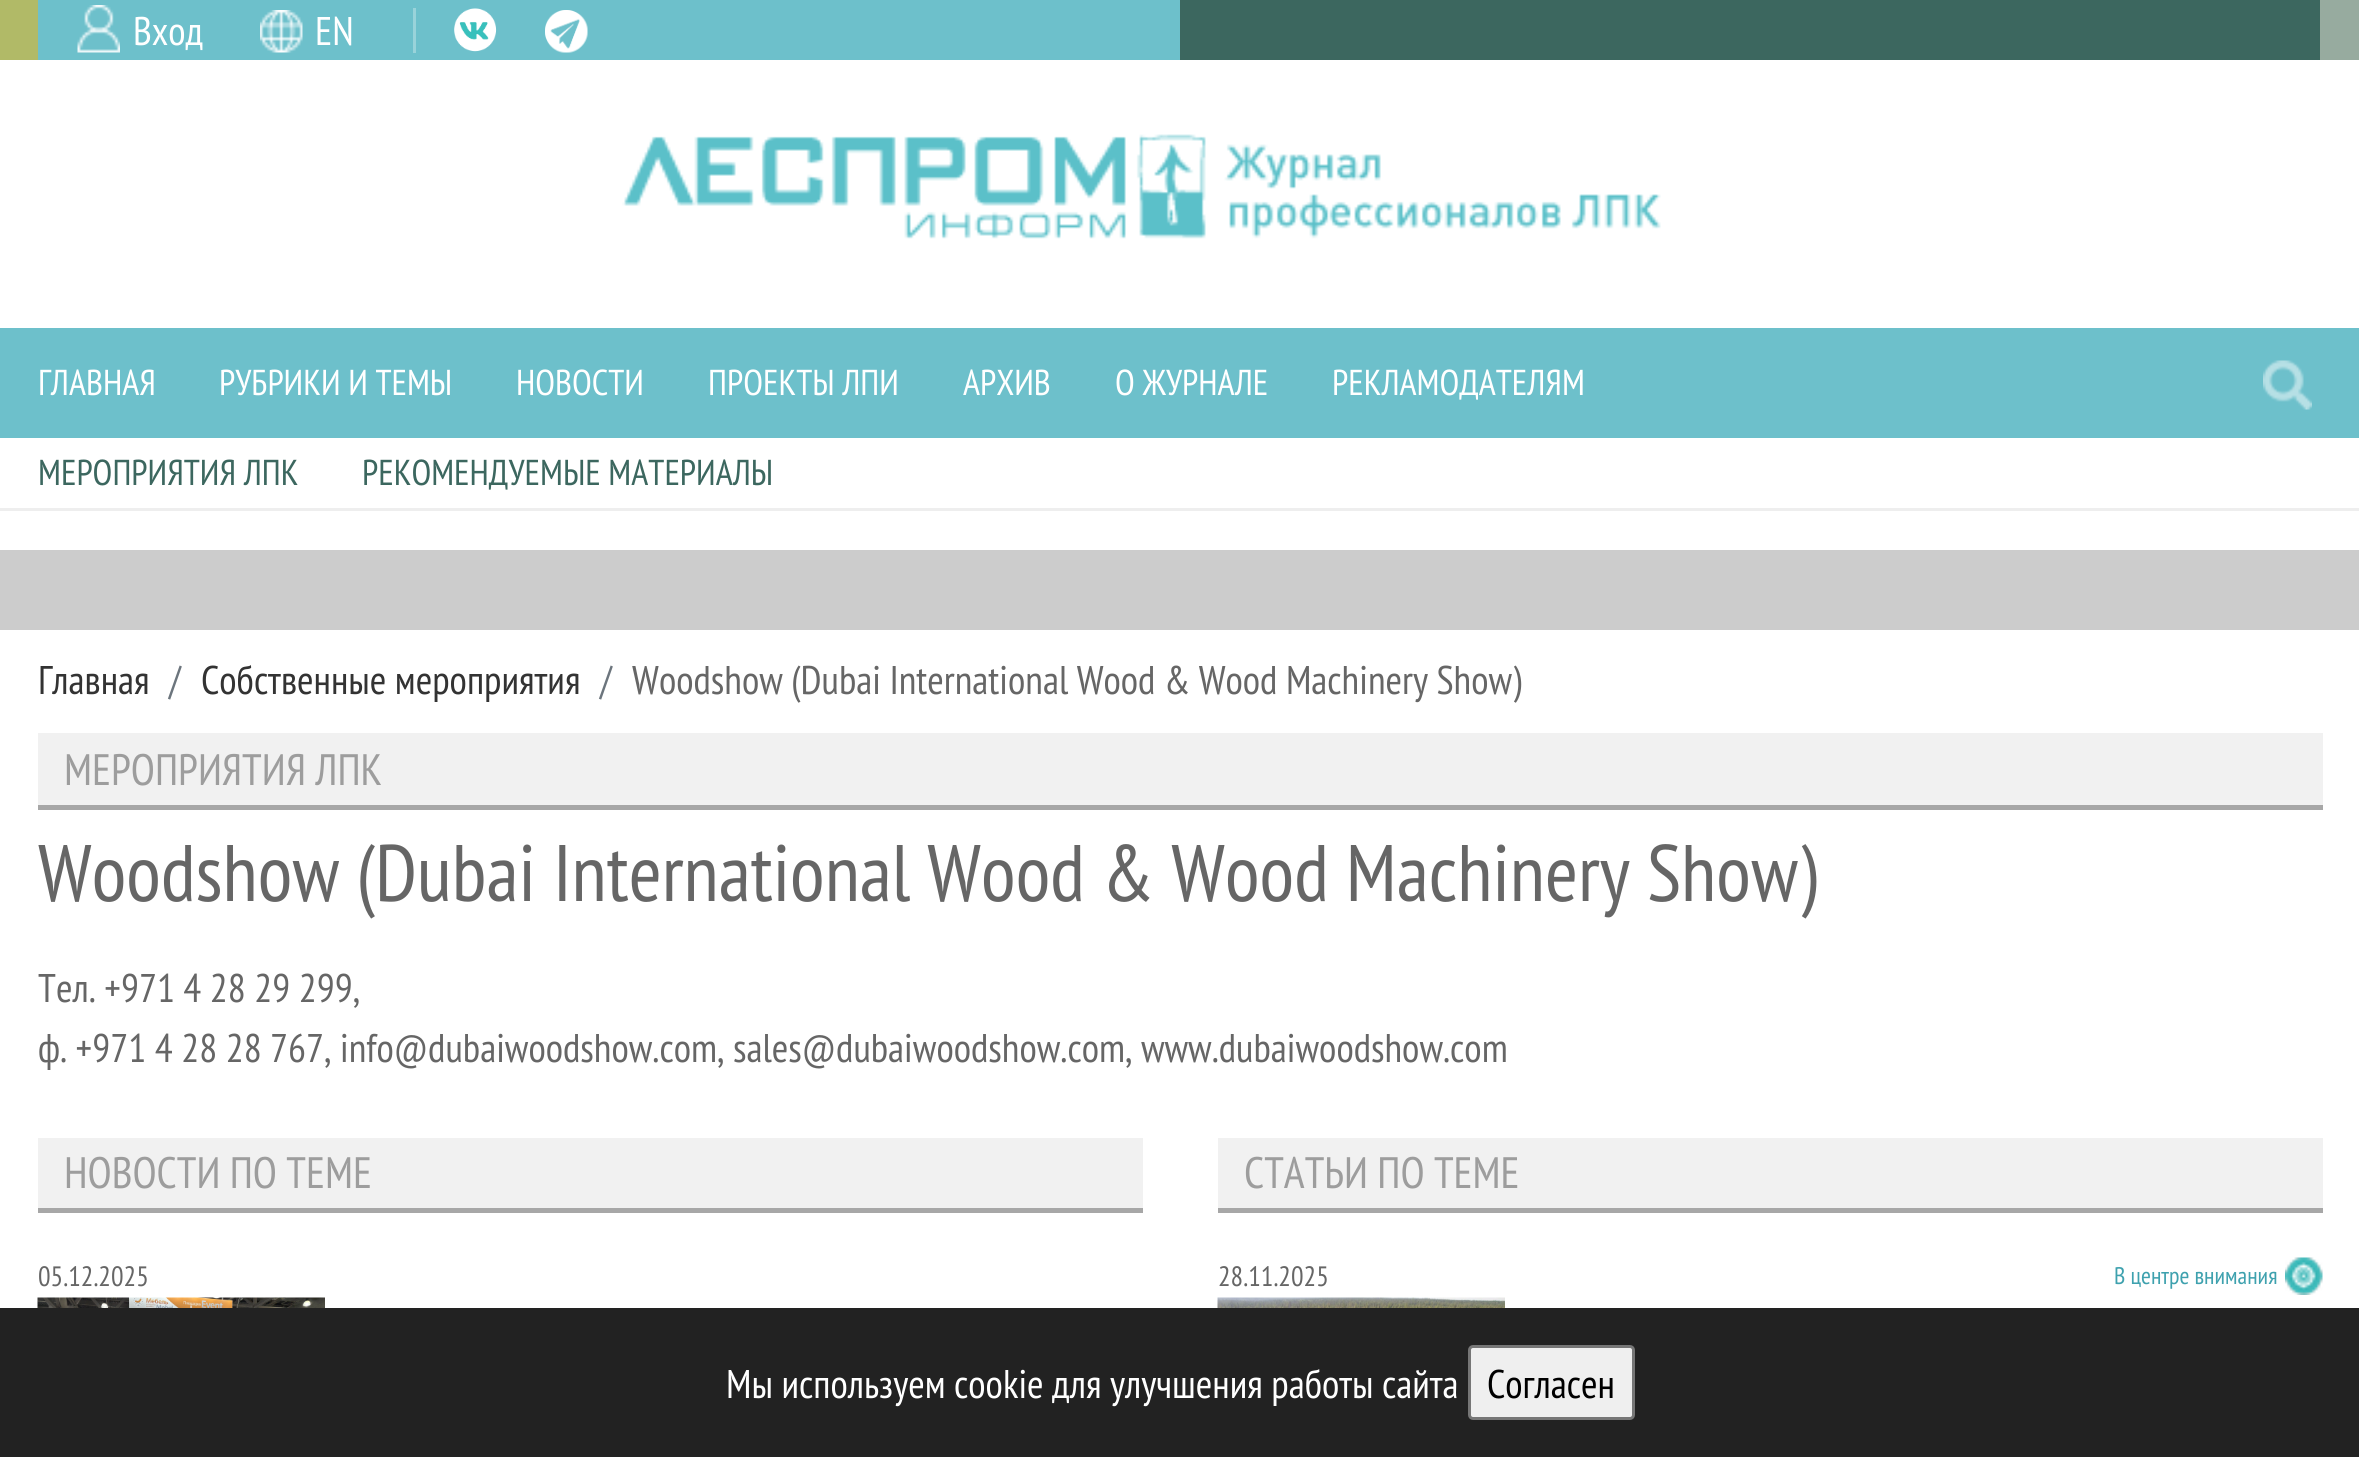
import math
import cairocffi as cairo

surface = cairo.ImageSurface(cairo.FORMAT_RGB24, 2359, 1457)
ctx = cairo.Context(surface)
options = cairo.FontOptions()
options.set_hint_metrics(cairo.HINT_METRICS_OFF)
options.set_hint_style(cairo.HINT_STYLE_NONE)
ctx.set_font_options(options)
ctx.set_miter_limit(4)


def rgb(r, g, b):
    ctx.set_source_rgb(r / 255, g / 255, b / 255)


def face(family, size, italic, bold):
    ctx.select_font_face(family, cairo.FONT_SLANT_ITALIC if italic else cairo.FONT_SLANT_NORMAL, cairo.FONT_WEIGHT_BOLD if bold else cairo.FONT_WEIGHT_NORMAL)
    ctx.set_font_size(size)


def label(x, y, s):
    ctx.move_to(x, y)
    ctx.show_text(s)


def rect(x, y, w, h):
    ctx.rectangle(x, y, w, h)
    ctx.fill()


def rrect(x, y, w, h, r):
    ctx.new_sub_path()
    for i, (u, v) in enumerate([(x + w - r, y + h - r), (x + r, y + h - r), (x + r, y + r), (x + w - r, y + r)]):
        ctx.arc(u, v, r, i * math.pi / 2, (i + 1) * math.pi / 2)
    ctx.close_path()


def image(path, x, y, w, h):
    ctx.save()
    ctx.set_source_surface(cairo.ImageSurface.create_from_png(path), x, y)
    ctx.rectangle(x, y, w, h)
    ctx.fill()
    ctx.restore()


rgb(255, 255, 255)
ctx.paint()
gradient = cairo.LinearGradient(0, 30, 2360, 30)
gradient.add_color_stop_rgba(0, 0.694, 0.729, 0.404, 1)
gradient.add_color_stop_rgba(0.5, 0.694, 0.729, 0.404, 1)
gradient.add_color_stop_rgba(0.51, 0.592, 0.671, 0.624, 1)
gradient.add_color_stop_rgba(1, 0.592, 0.671, 0.624, 1)
ctx.set_source(gradient)
rect(0, 0, 2359, 60)
rgb(109, 192, 203)
rect(38, 0, 1142, 60)
image('image0.png', 77, 5, 43, 48)
face('PT Sans Narrow', 40, 0, 0)
rgb(255, 255, 255)
label(133, 45, 'Вход')
image('image1.png', 260, 10, 43, 43)
label(315, 45, 'EN')
rgb(153, 211, 218)
rect(413, 8, 3, 45)
image('image2.png', 454, 8, 43, 44)
image('image3.png', 545, 10, 43, 43)
rgb(60, 103, 95)
rect(1180, 0, 1140, 60)
image('image4.png', 622, 134, 1039, 105)
rgb(34, 34, 34)
rect(0, 1308, 2359, 149)
rgb(255, 255, 255)
label(726, 1398, 'Мы используем cookie для улучшения работы сайта')
rgb(239, 239, 239)
rrect(1469.5, 1346.5, 164, 72, 3.5)
ctx.fill_preserve()
rgb(118, 118, 118)
ctx.set_line_width(3)
ctx.stroke()
rgb(0, 0, 0)
label(1487, 1398, 'Согласен')
rgb(238, 238, 238)
rect(0, 508, 2359, 3)
rgb(109, 192, 203)
rect(0, 328, 2359, 110)
face('PT Sans Narrow', 36, 0, 0)
rgb(255, 255, 255)
label(38, 395, 'ГЛАВНАЯ')
label(219, 395, 'РУБРИКИ И ТЕМЫ')
label(516, 395, 'НОВОСТИ')
label(708, 395, 'ПРОЕКТЫ ЛПИ')
label(963, 395, 'АРХИВ')
label(1115, 395, 'О ЖУРНАЛЕ')
label(1332, 395, 'РЕКЛАМОДАТЕЛЯМ')
image('image5.png', 2263, 360, 49, 50)
rgb(60, 103, 95)
label(38, 485, 'МЕРОПРИЯТИЯ ЛПК')
label(362, 485, 'РЕКОМЕНДУЕМЫЕ МАТЕРИАЛЫ')
rgb(204, 204, 204)
rect(0, 550, 2359, 80)
face('PT Sans Narrow', 40, 0, 0)
rgb(51, 51, 51)
label(38, 694, 'Главная')
rgb(108, 117, 125)
label(169, 694, '/')
rgb(51, 51, 51)
label(201, 694, 'Собственные мероприятия')
rgb(108, 117, 125)
label(600, 694, '/')
rgb(102, 102, 102)
label(632, 694, 'Woodshow (Dubai International Wood & Wood Machinery Show)')
rgb(241, 241, 241)
rect(38, 733, 2285, 72)
rgb(167, 167, 167)
rect(38, 805, 2285, 5)
face('PT Sans Narrow', 44, 0, 0)
rgb(157, 157, 157)
label(64, 785, 'МЕРОПРИЯТИЯ ЛПК')
face('PT Sans Narrow', 80, 0, 0)
rgb(102, 102, 102)
label(38, 901, 'Woodshow (Dubai International Wood & Wood Machinery Show)')
face('PT Sans Narrow', 40, 0, 0)
label(38, 1002, 'Тел. +971 4 28 29 299,')
label(38, 1062, 'ф. +971 4 28 28 767, info@dubaiwoodshow.com, sales@dubaiwoodshow.com, www.dubaiwoodshow.com')
rgb(241, 241, 241)
rect(38, 1138, 1105, 70)
rgb(167, 167, 167)
rect(38, 1208, 1105, 5)
face('PT Sans Narrow', 44, 0, 0)
rgb(157, 157, 157)
label(64, 1188, 'НОВОСТИ ПО ТЕМЕ')
face('PT Sans Narrow', 28, 0, 0)
rgb(102, 102, 102)
label(38, 1286, '05.12.2025')
image('image6.png', 37, 1297, 288, 11)
rgb(241, 241, 241)
rect(1218, 1138, 1105, 70)
rgb(167, 167, 167)
rect(1218, 1208, 1105, 5)
face('PT Sans Narrow', 44, 0, 0)
rgb(157, 157, 157)
label(1244, 1188, 'СТАТЬИ ПО ТЕМЕ')
face('PT Sans Narrow', 28, 0, 0)
rgb(102, 102, 102)
label(1218, 1286, '28.11.2025')
face('PT Sans Narrow', 24, 0, 0)
rgb(62, 161, 174)
label(2114, 1284, 'В центре внимания')
image('image7.png', 2285, 1257, 38, 38)
image('image8.png', 1217, 1297, 288, 11)
surface.write_to_png('render.png')
